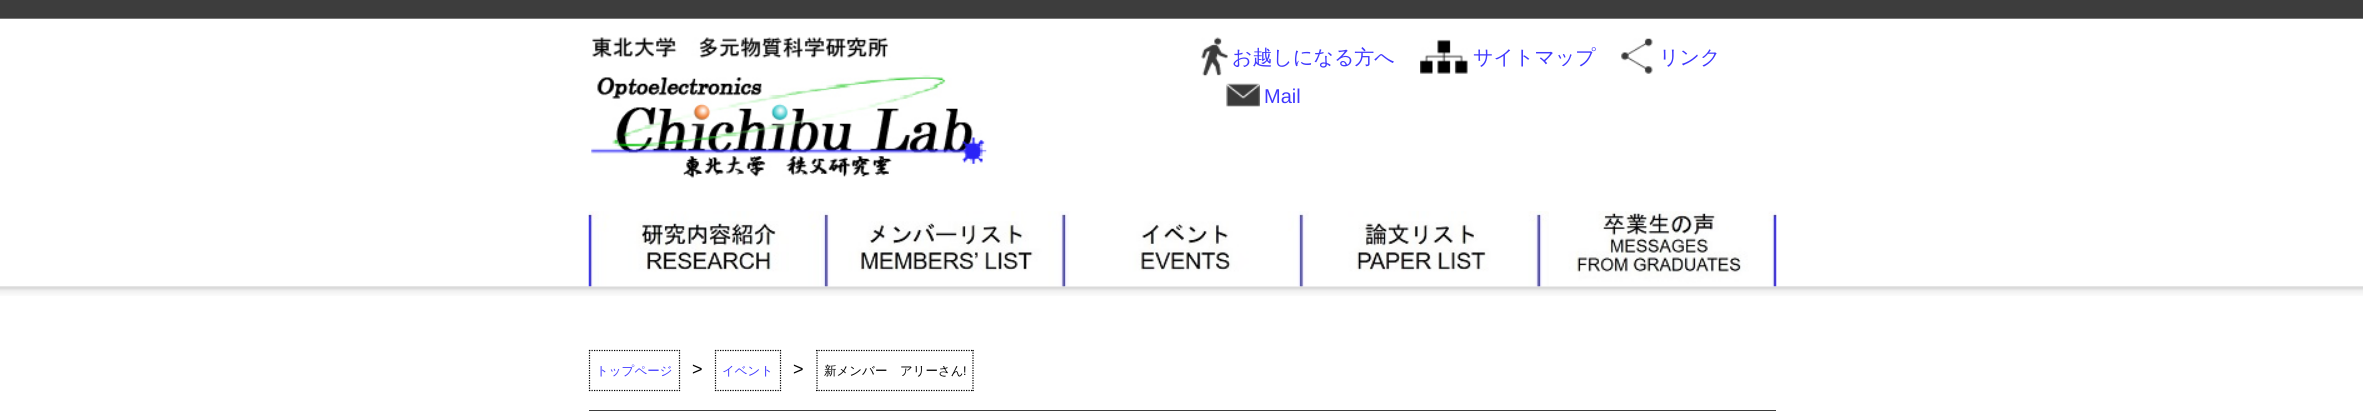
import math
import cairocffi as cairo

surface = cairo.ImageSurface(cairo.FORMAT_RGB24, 2363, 411)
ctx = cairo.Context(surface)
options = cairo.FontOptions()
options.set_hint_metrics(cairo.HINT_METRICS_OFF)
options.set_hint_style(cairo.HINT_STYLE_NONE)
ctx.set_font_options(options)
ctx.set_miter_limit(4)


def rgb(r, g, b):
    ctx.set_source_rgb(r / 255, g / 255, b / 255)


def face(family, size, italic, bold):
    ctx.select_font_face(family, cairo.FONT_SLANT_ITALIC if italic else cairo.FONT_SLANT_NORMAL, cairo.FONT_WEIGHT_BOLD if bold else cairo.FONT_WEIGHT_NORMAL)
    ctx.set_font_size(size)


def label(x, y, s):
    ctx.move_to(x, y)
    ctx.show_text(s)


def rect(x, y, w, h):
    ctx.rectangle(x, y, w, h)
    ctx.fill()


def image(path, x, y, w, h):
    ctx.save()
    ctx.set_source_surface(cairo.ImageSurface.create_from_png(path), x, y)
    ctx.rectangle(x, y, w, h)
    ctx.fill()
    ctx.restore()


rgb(255, 255, 255)
ctx.paint()
image('image0.png', 0, 0, 2363, 296)
image('image1.png', 591, 37, 396, 141)
image('image2.png', 1201, 37, 27, 40)
face('WenQuanYi Zen Hei Medium', 20, 0, 0)
rgb(64, 57, 255)
label(1232, 64, 'お越しになる方へ')
image('image3.png', 1420, 39, 48, 35)
label(1473, 64, 'サイトマップ')
image('image4.png', 1621, 38, 32, 36)
label(1659, 64, 'リンク')
image('image5.png', 1226, 83, 34, 24)
face('Liberation Sans', 20, 0, 0)
label(1264, 103, 'Mail')
image('image6.png', 588, 211, 239, 76)
image('image7.png', 826, 211, 238, 76)
image('image8.png', 1063, 211, 239, 76)
image('image9.png', 1301, 211, 238, 76)
image('image10.png', 1538, 211, 239, 76)
ctx.new_path()
ctx.move_to(589, 350.5)
ctx.line_to(680, 350.5)
rgb(0, 0, 0)
ctx.set_line_width(1.2)
ctx.set_dash([1.25, 1.25])
ctx.stroke()
ctx.new_path()
ctx.move_to(679.5, 350)
ctx.line_to(679.5, 391)
ctx.stroke()
ctx.new_path()
ctx.move_to(589, 390.5)
ctx.line_to(680, 390.5)
ctx.stroke()
ctx.new_path()
ctx.move_to(589.5, 350)
ctx.line_to(589.5, 391)
ctx.stroke()
face('WenQuanYi Zen Hei Medium', 12.5, 0, 0)
rgb(64, 57, 255)
label(596, 375, 'トップページ')
face('Liberation Sans', 18, 0, 0)
rgb(0, 0, 0)
label(692, 375, '>')
ctx.new_path()
ctx.move_to(715, 350.5)
ctx.line_to(781, 350.5)
ctx.stroke()
ctx.new_path()
ctx.move_to(780.5, 350)
ctx.line_to(780.5, 391)
ctx.stroke()
ctx.new_path()
ctx.move_to(715, 390.5)
ctx.line_to(781, 390.5)
ctx.stroke()
ctx.new_path()
ctx.move_to(715.5, 350)
ctx.line_to(715.5, 391)
ctx.stroke()
face('WenQuanYi Zen Hei Medium', 12.5, 0, 0)
rgb(64, 57, 255)
label(722, 375, 'イベント')
face('Liberation Sans', 18, 0, 0)
rgb(0, 0, 0)
label(793, 375, '>')
ctx.new_path()
ctx.move_to(816, 350.5)
ctx.line_to(974, 350.5)
ctx.stroke()
ctx.new_path()
ctx.move_to(973, 350)
ctx.line_to(973, 391)
ctx.stroke()
ctx.new_path()
ctx.move_to(816, 390.5)
ctx.line_to(974, 390.5)
ctx.stroke()
ctx.new_path()
ctx.move_to(817, 350)
ctx.line_to(817, 391)
ctx.stroke()
face('WenQuanYi Zen Hei Medium', 12.5, 0, 0)
label(824, 375, '新メンバー　アリーさん')
face('Liberation Sans', 12.5, 0, 0)
label(963, 375, '!')
rgb(61, 61, 61)
rect(589, 410, 1187, 1)
surface.write_to_png('render.png')
